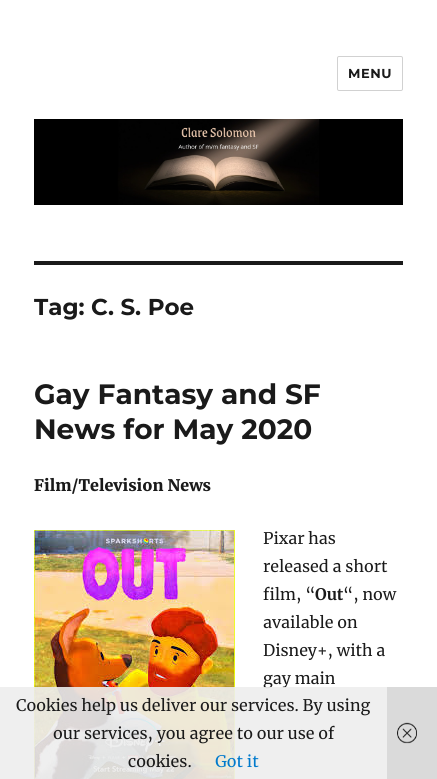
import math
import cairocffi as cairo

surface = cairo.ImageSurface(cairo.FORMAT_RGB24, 437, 779)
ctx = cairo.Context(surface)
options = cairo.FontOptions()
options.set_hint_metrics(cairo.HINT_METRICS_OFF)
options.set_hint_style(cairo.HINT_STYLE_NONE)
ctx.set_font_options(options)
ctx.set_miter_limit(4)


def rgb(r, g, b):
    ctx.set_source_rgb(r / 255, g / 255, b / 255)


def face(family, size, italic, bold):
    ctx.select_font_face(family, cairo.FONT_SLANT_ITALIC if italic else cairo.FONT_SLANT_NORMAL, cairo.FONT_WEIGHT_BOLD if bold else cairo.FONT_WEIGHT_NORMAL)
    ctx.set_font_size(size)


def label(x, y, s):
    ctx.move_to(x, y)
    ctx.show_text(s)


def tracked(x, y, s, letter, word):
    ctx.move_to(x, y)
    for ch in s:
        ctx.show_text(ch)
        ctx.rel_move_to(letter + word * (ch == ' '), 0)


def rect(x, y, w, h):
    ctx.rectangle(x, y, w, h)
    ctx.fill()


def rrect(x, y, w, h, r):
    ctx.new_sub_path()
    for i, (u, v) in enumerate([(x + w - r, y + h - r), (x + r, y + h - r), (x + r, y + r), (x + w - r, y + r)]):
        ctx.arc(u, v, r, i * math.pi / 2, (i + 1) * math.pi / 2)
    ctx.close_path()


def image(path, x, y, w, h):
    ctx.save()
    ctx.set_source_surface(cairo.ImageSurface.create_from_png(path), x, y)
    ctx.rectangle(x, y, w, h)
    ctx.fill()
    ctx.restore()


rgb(255, 255, 255)
ctx.paint()
rrect(337.5, 56.5, 65, 34, 1.5)
rgb(209, 209, 209)
ctx.set_line_width(1)
ctx.stroke()
face('Montserrat Thin', 13, 0, 0)
rgb(26, 26, 26)
tracked(348, 78, 'MENU', 0.5, 0)
image('image0.png', 34, 119, 369, 86)
rect(34, 261, 369, 4)
face('Montserrat Thin', 23, 0, 0)
label(34, 315, 'Tag: C. S. Poe')
face('Montserrat Thin', 28, 0, 0)
label(34, 404, 'Gay Fantasy and SF')
label(34, 439, 'News for May 2020')
face('Merriweather Black', 16, 0, 0)
label(34, 491, 'Film/Television News')
image('image1.png', 34, 530, 201, 249)
face('Merriweather', 16, 0, 0)
label(263, 544, 'Pixar has')
label(263, 572, 'released a short')
label(263, 600, 'film, “')
face('Merriweather', 16, 0, 1)
label(315, 600, 'Out')
face('Merriweather', 16, 0, 0)
label(343, 600, '“, now')
label(263, 628, 'available on')
label(263, 656, 'Disney+, with a')
label(263, 684, 'gay main')
ctx.set_source_rgba(0.933, 0.933, 0.933, 0.9)
rect(0, 687, 437, 92)
rgb(26, 26, 26)
label(16, 711, 'Cookies help us deliver our services. By using')
label(53, 739, 'our services, you agree to our use of')
label(128, 767, 'cookies.')
rgb(0, 122, 204)
label(215, 767, 'Got it')
ctx.set_source_rgba(0.8, 0.8, 0.8, 0.6)
rect(387, 687, 50, 92)
image('image2.png', 397, 722, 20, 22)
surface.write_to_png('render.png')
